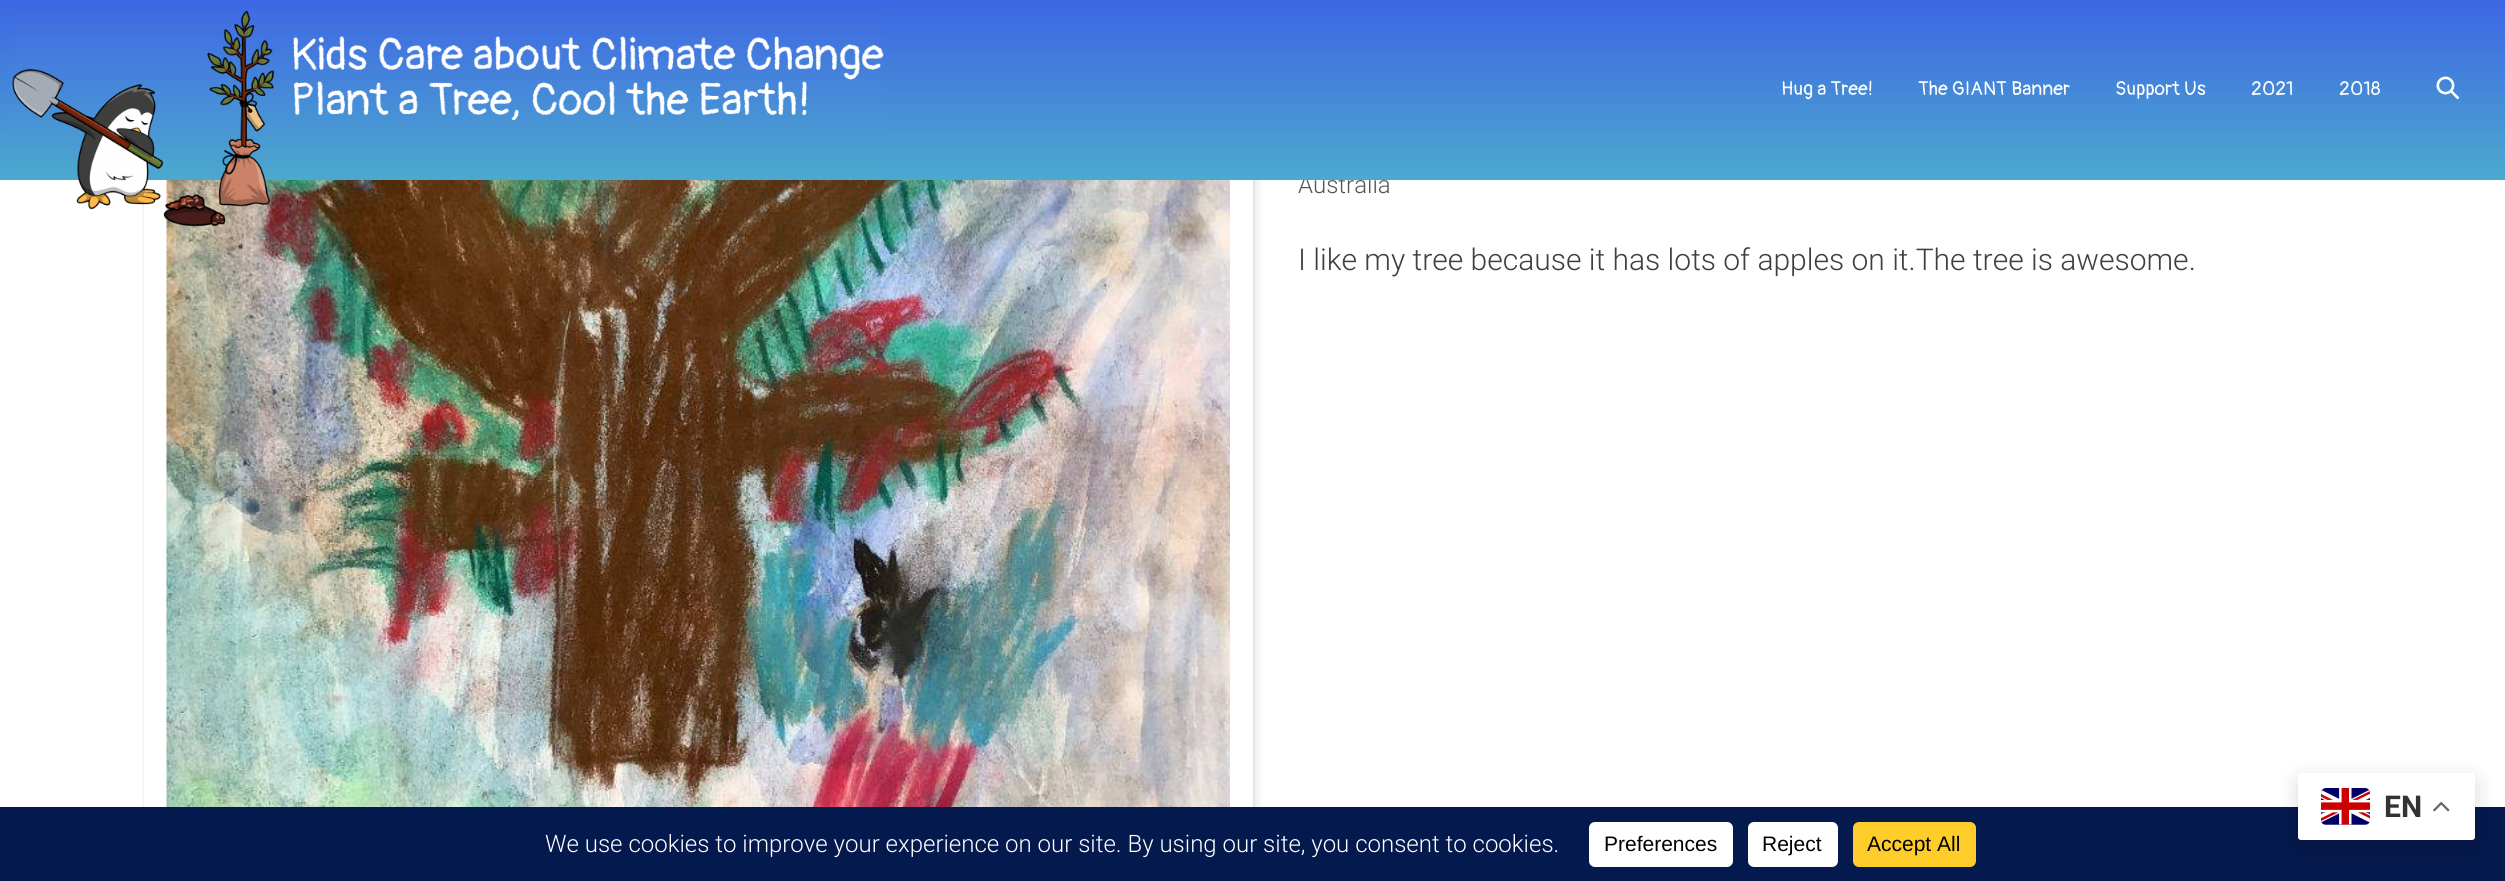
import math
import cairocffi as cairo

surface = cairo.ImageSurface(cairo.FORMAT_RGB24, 2505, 881)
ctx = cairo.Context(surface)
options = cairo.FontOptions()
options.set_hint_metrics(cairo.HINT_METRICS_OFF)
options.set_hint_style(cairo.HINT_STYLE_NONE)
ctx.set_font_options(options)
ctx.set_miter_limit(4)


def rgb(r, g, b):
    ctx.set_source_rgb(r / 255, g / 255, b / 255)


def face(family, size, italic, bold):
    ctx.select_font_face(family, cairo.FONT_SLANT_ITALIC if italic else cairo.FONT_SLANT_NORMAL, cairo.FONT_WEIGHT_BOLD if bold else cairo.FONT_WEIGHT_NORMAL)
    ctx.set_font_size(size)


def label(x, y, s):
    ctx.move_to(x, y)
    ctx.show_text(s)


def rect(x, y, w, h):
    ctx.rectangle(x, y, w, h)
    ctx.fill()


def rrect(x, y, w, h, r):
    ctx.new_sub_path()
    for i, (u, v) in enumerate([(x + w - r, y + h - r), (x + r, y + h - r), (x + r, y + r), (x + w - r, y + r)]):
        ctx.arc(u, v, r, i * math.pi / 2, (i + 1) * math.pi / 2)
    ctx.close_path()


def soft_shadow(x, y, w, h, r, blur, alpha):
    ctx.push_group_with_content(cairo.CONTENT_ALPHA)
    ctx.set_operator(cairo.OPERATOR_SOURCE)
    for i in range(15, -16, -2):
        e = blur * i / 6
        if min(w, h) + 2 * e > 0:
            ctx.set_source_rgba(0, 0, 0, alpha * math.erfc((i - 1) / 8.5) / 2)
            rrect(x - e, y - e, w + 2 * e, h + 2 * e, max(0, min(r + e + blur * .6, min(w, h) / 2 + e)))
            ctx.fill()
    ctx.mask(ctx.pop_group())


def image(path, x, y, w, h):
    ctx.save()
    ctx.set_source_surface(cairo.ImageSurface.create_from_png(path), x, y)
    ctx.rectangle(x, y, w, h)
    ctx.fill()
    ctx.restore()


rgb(255, 255, 255)
ctx.paint()
rgb(0, 0, 0)
soft_shadow(149, 9, 1108, 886, 0, 4.5, 0.1)
soft_shadow(144, 5, 1109, 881, 0, 1.5, 0.1)
face('Roboto Light', 24, 0, 0)
rgb(85, 85, 85)
label(1298, 193, 'Australia')
gradient = cairo.LinearGradient(1253, 0, 1253, 180)
gradient.add_color_stop_rgba(0, 0.243, 0.4, 0.894, 1)
gradient.add_color_stop_rgba(1, 0.294, 0.663, 0.808, 1)
ctx.set_source(gradient)
rect(0, 0, 2505, 180)
rgb(255, 255, 255)
rect(144, 180, 1109, 627)
image('image2.png', 166, 180, 1064, 627)
image('image0.png', 12, 10, 872, 217)
face('Pangolin', 19.5, 0, 0)
label(1781, 95, 'Hug a Tree!')
label(1918, 95, 'The GIANT Banner')
label(2115, 95, 'Support Us')
label(2251, 95, '2021')
label(2339, 95, '2018')
image('image1.png', 2436, 76, 24, 24)
face('Roboto Light', 30, 0, 0)
rgb(63, 63, 63)
label(1298, 270, 'I like my tree because it has lots of apples on it.The tree is awesome.')
rgb(4, 25, 78)
rect(0, 807, 2505, 74)
rgb(0, 0, 0)
soft_shadow(2298, 780, 177, 68, 3, 11, 0.15)
rgb(255, 255, 255)
rrect(2298, 773, 177, 67, 3)
ctx.fill()
image('image3.png', 2321, 788, 49, 37)
face('Roboto', 30, 0, 1)
rgb(51, 51, 51)
label(2384, 817, 'EN')
image('image4.png', 2433, 801, 17, 11)
face('Roboto Light', 24, 0, 0)
rgb(255, 255, 255)
label(545, 852, 'We use cookies to improve your experience on our site. By using our site, you consent to cookies.')
rrect(1589, 822, 144, 45, 6)
ctx.fill()
face('Liberation Sans', 21, 0, 0)
rgb(0, 0, 0)
label(1604, 851, 'Preferences')
rgb(255, 255, 255)
rrect(1748, 822, 90, 45, 6)
ctx.fill()
rgb(0, 0, 0)
label(1762, 851, 'Reject')
rgb(255, 205, 42)
rrect(1853, 822, 123, 45, 6)
ctx.fill()
rgb(0, 0, 0)
label(1867, 851, 'Accept All')
surface.write_to_png('render.png')
